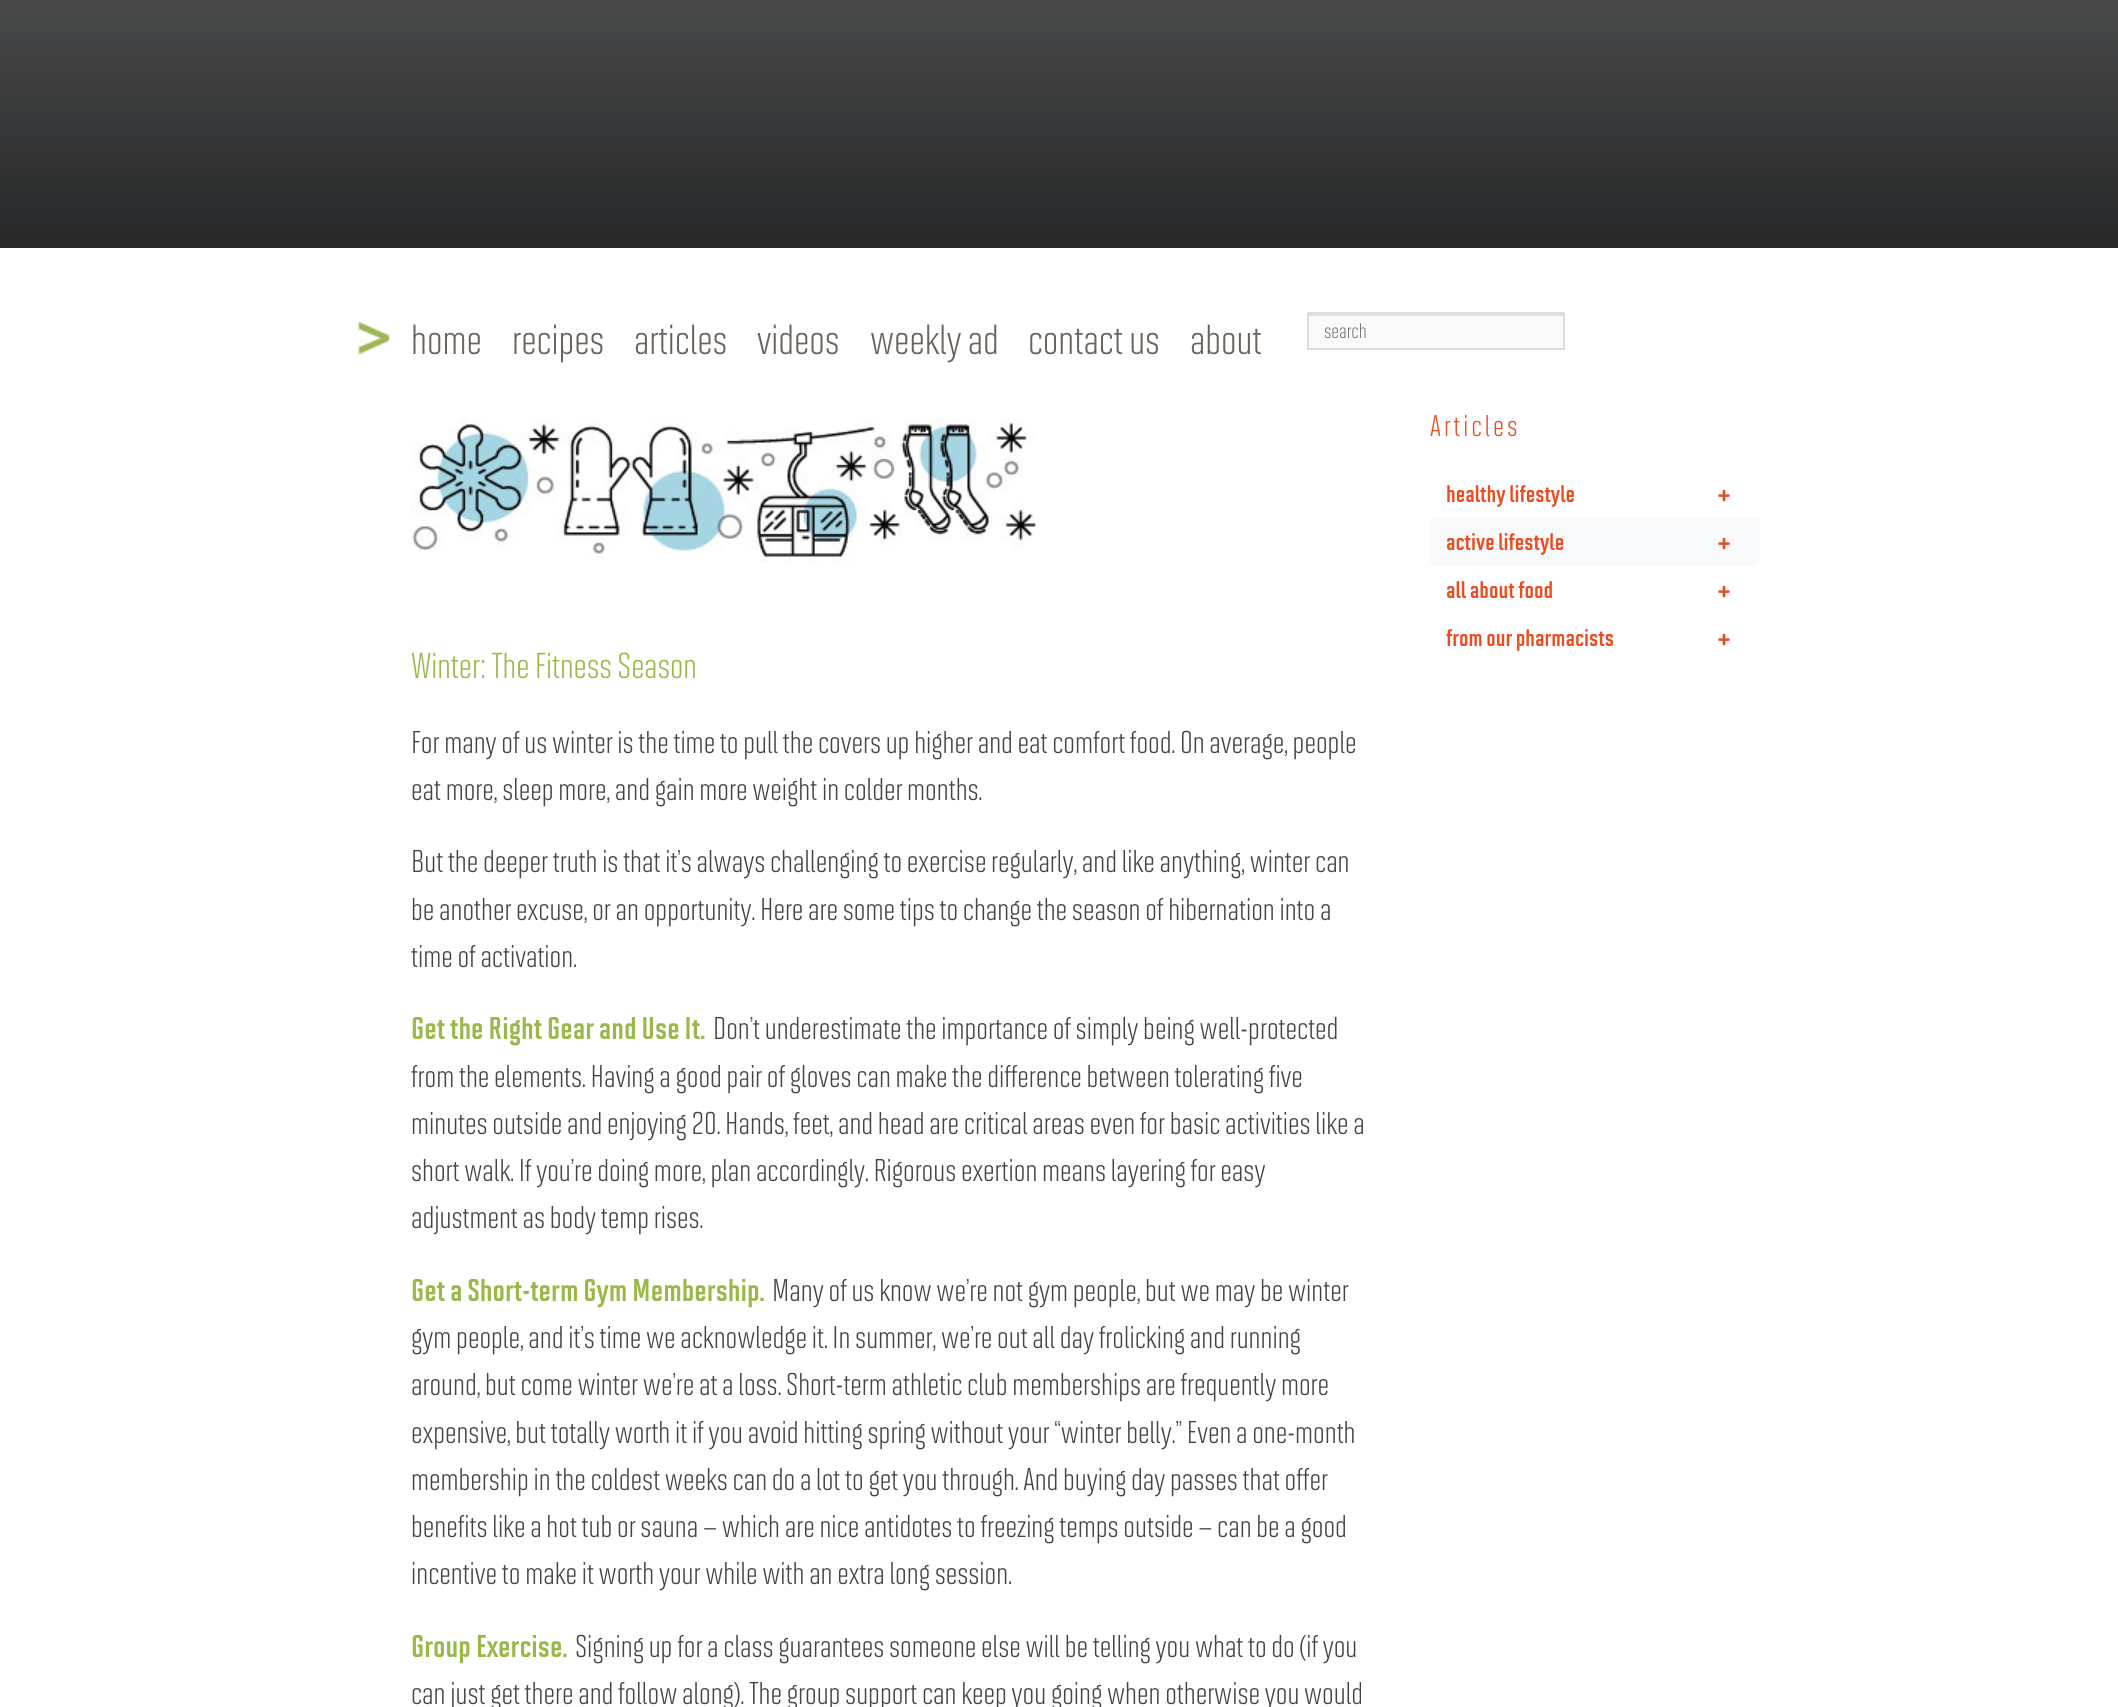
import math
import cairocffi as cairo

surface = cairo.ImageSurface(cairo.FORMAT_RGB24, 2118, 1707)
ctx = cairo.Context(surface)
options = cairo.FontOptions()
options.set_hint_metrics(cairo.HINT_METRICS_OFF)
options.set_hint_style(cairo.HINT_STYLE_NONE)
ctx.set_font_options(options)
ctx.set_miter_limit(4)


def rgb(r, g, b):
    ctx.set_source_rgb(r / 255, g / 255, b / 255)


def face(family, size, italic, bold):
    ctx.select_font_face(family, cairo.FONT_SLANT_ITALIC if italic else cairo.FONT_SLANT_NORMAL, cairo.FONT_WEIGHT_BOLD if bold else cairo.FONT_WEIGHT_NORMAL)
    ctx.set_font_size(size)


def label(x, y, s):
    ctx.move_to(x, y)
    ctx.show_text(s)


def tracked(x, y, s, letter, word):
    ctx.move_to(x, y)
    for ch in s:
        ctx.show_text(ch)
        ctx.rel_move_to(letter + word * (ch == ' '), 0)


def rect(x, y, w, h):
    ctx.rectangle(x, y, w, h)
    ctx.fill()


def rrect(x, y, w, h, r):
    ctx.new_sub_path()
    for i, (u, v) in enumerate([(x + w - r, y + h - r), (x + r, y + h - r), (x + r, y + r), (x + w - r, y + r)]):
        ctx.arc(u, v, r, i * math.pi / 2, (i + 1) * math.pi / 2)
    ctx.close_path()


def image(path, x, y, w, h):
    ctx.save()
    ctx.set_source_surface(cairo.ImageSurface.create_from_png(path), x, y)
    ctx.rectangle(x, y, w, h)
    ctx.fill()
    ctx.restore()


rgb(255, 255, 255)
ctx.paint()
image('image0.png', 0, 0, 2118, 248)
image('image1.png', 354, 317, 37, 44)
face('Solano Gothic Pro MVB', 42, 0, 0)
rgb(107, 99, 93)
label(411, 354, 'home')
label(512, 354, 'recipes')
label(634, 354, 'articles')
label(757, 354, 'videos')
label(870, 354, 'weekly ad')
label(1028, 354, 'contact us')
label(1190, 354, 'about')
rgb(250, 250, 250)
rect(1309, 316, 254, 32)
rgb(225, 225, 225)
rect(1308, 314, 255, 2)
ctx.rectangle(1308, 313, 256, 36)
rgb(221, 221, 221)
ctx.stroke()
face('Solano Gothic Pro MVB', 21, 0, 0)
rgb(117, 117, 117)
label(1324, 338, 'search')
face('Solano Gothic Pro MVB', 30, 0, 0)
rgb(237, 76, 33)
tracked(1430, 436, 'Articles', 3, 0)
face('Solano Gothic Pro MVB', 24, 0, 1)
label(1446, 502, 'healthy lifestyle')
face('Solano Gothic Pro MVB', 30, 0, 1)
label(1718, 505, '+')
rgb(247, 249, 251)
rrect(1430, 518, 330, 48, 6)
ctx.fill()
face('Solano Gothic Pro MVB', 24, 0, 1)
rgb(237, 76, 33)
label(1446, 550, 'active lifestyle')
face('Solano Gothic Pro MVB', 30, 0, 1)
label(1718, 553, '+')
face('Solano Gothic Pro MVB', 24, 0, 1)
label(1446, 598, 'all about food')
face('Solano Gothic Pro MVB', 30, 0, 1)
label(1718, 601, '+')
face('Solano Gothic Pro MVB', 24, 0, 1)
label(1446, 646, 'from our pharmacists')
face('Solano Gothic Pro MVB', 30, 0, 1)
label(1718, 649, '+')
image('image2.png', 411, 418, 627, 144)
face('Solano Gothic Pro MVB', 36, 0, 0)
rgb(153, 184, 72)
label(411, 678, 'Winter: The Fitness Season')
face('Solano Gothic Pro MVB', 31.5, 0, 0)
rgb(68, 68, 68)
label(411, 753, 'For many of us winter is the time to pull the covers up higher and eat comfort food. On average, people')
label(411, 800, 'eat more, sleep more, and gain more weight in colder months.')
label(411, 872, 'But the deeper truth is that it’s always challenging to exercise regularly, and like anything, winter can')
label(411, 920, 'be another excuse, or an opportunity. Here are some tips to change the season of hibernation into a')
label(411, 967, 'time of activation.')
face('Solano Gothic Pro MVB', 31.5, 0, 1)
rgb(153, 184, 72)
label(411, 1039, 'Get the Right Gear and Use It.')
face('Solano Gothic Pro MVB', 31.5, 0, 0)
rgb(68, 68, 68)
label(713, 1039, 'Don’t underestimate the importance of simply being well-protected')
label(411, 1087, 'from the elements. Having a good pair of gloves can make the difference between tolerating five')
label(411, 1134, 'minutes outside and enjoying 20. Hands, feet, and head are critical areas even for basic activities like a')
label(411, 1181, 'short walk. If you’re doing more, plan accordingly. Rigorous exertion means layering for easy')
label(411, 1228, 'adjustment as body temp rises.')
face('Solano Gothic Pro MVB', 31.5, 0, 1)
rgb(153, 184, 72)
label(411, 1301, 'Get a Short-term Gym Membership.')
face('Solano Gothic Pro MVB', 31.5, 0, 0)
rgb(68, 68, 68)
label(772, 1301, 'Many of us know we’re not gym people, but we may be winter')
label(411, 1348, 'gym people, and it’s time we acknowledge it. In summer, we’re out all day frolicking and running')
label(411, 1395, 'around, but come winter we’re at a loss. Short-term athletic club memberships are frequently more')
label(411, 1443, 'expensive, but totally worth it if you avoid hitting spring without your “winter belly.” Even a one-month')
label(411, 1490, 'membership in the coldest weeks can do a lot to get you through. And buying day passes that offer')
label(411, 1537, 'benefits like a hot tub or sauna – which are nice antidotes to freezing temps outside – can be a good')
label(411, 1584, 'incentive to make it worth your while with an extra long session.')
face('Solano Gothic Pro MVB', 31.5, 0, 1)
rgb(153, 184, 72)
label(411, 1657, 'Group Exercise.')
face('Solano Gothic Pro MVB', 31.5, 0, 0)
rgb(68, 68, 68)
label(575, 1657, 'Signing up for a class guarantees someone else will be telling you what to do (if you')
label(411, 1704, 'can just get there and follow along). The group support can keep you going when otherwise you would')
surface.write_to_png('render.png')
